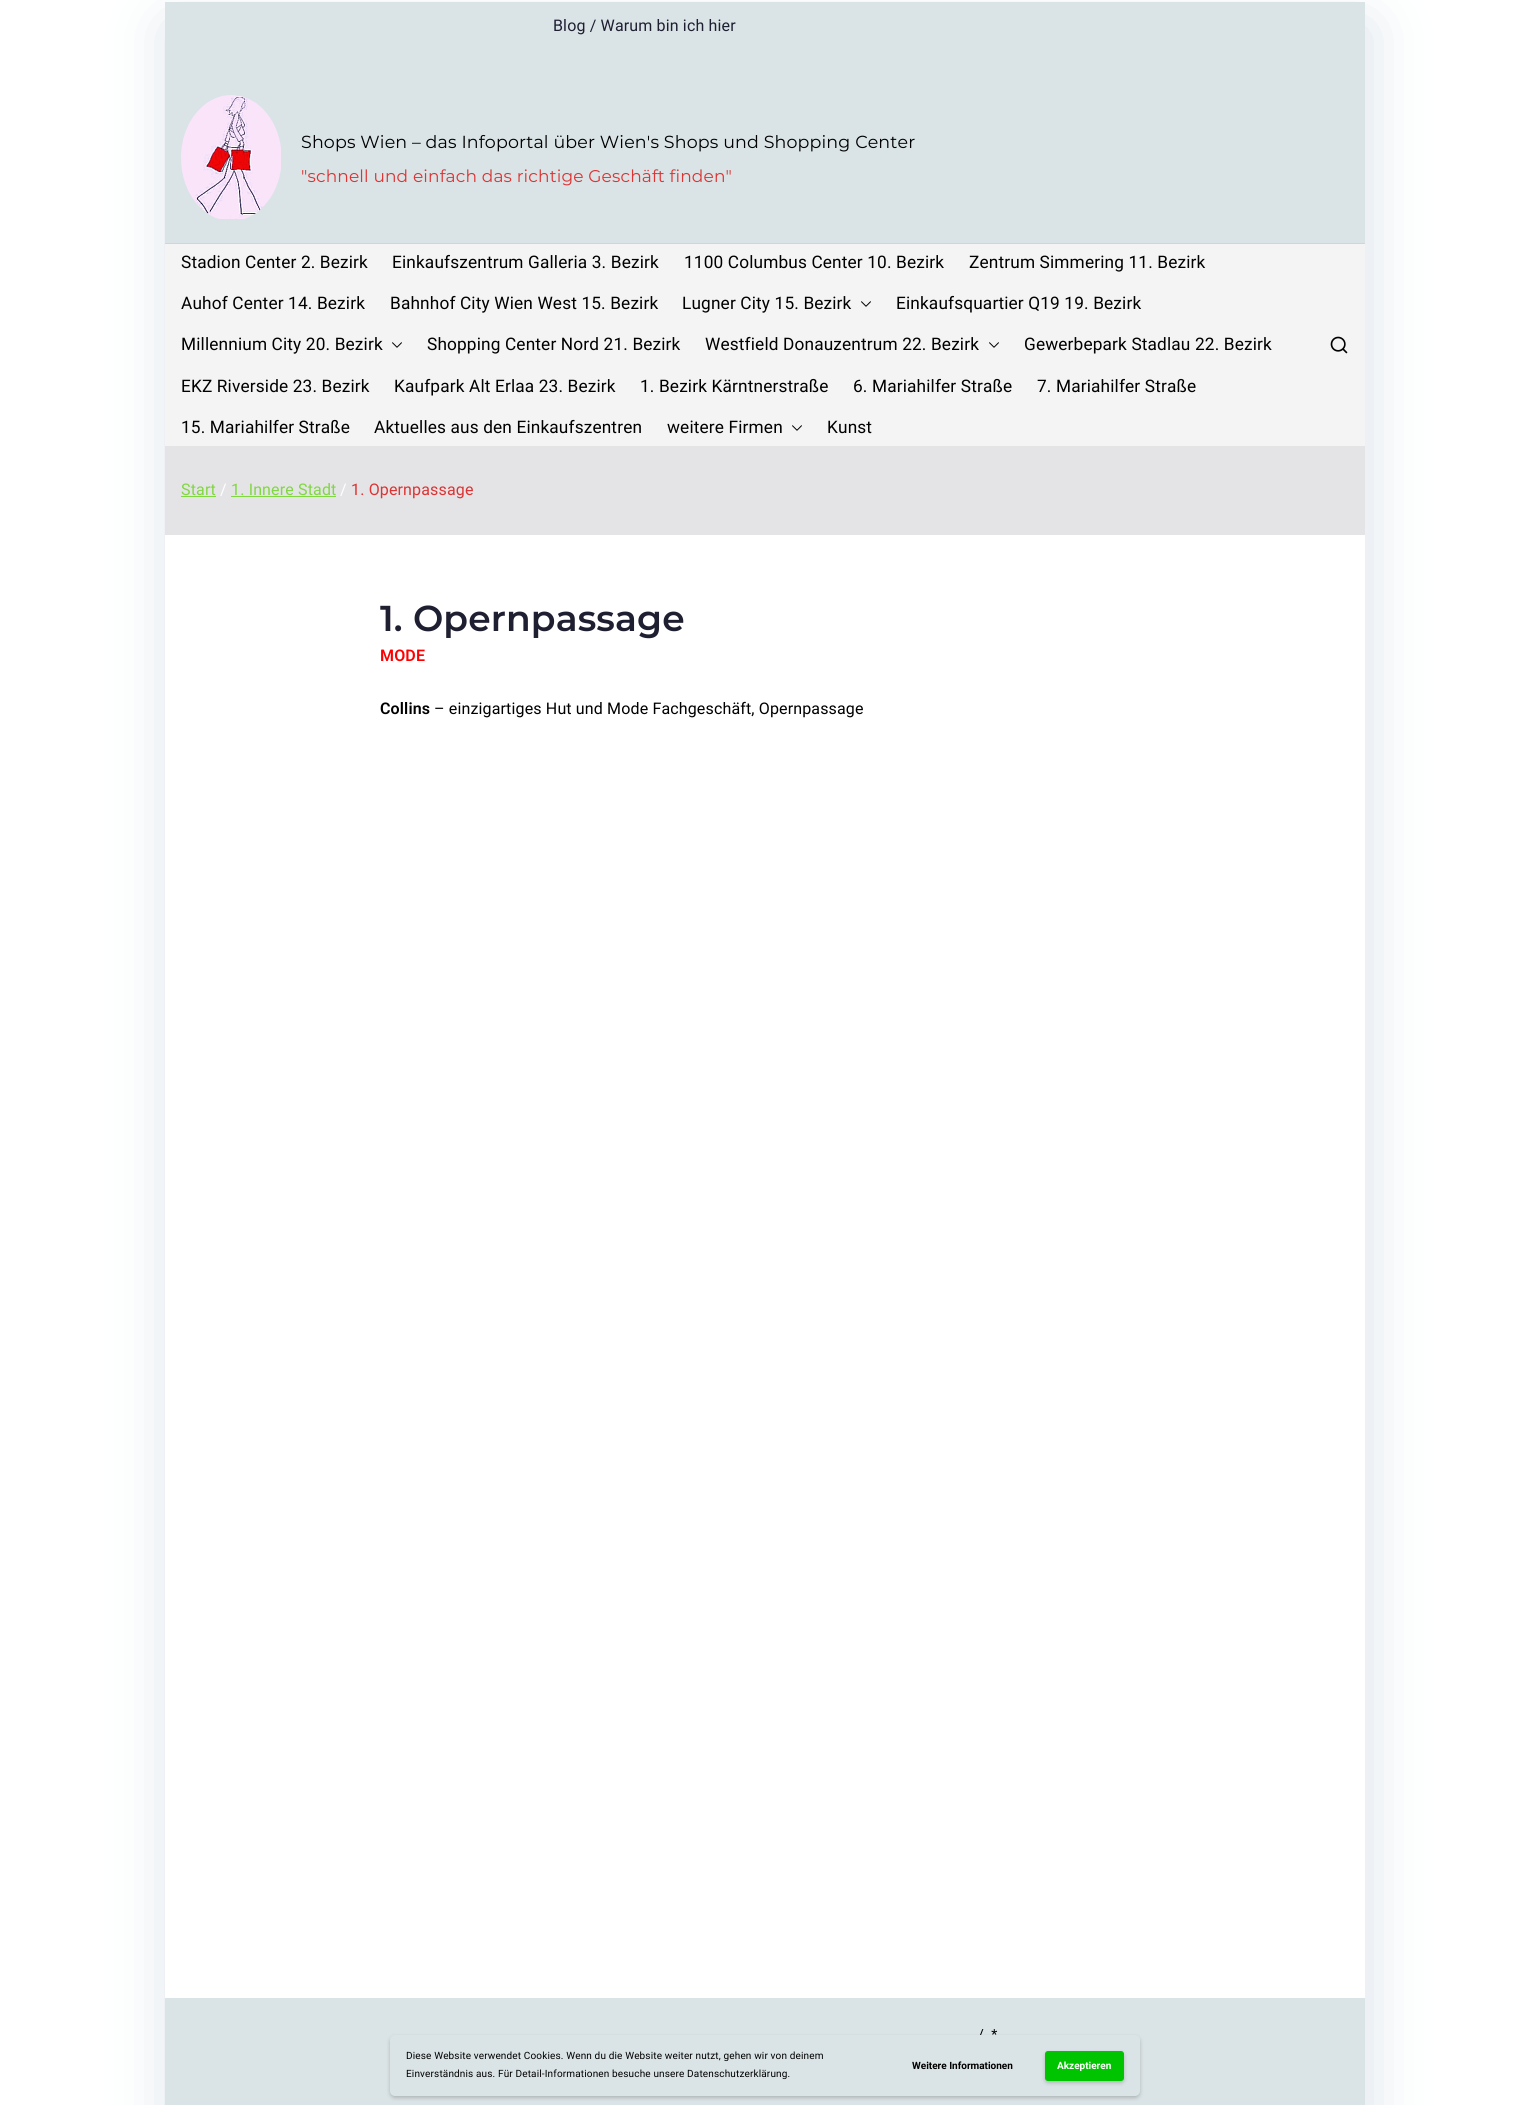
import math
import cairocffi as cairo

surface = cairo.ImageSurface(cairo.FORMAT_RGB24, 1530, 2105)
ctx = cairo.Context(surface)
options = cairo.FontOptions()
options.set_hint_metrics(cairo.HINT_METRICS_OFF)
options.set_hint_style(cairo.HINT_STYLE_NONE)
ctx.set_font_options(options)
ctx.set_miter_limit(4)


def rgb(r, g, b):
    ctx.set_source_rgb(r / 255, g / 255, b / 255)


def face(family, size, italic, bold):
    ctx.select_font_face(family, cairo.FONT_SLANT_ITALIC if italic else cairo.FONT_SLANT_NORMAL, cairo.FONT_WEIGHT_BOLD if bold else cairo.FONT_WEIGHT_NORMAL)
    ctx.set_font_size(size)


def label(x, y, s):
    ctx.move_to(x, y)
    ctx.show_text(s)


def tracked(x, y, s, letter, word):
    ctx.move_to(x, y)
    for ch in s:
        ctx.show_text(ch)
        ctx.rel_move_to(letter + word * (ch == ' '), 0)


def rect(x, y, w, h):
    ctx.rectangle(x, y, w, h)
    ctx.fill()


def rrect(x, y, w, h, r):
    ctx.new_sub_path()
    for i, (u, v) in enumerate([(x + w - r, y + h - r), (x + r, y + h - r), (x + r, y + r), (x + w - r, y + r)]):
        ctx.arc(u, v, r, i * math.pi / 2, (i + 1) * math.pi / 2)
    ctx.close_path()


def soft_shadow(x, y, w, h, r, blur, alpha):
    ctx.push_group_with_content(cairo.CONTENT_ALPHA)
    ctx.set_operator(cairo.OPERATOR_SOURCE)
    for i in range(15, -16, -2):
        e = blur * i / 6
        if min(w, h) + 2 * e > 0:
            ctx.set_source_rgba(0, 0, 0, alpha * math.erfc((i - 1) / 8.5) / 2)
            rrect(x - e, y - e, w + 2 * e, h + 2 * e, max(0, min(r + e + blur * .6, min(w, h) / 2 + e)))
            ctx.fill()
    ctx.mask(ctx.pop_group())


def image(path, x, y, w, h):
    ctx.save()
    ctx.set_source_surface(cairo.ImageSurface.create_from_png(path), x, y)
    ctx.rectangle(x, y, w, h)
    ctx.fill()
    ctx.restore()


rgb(255, 255, 255)
ctx.paint()
rgb(109, 141, 173)
soft_shadow(169, 26, 1200, 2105, 0, 30, 0.25)
rgb(218, 227, 229)
rect(165, 2, 1200, 241)
face('Roboto', 16, 0, 0)
rgb(31, 31, 50)
tracked(553, 31, 'Blog / Warum bin ich hier', 0.15, 0)
image('image0.png', 181, 95, 100, 124)
face('Montserrat', 17.45, 0, 0)
rgb(0, 0, 0)
tracked(301, 148, 'Shops Wien – das Infoportal über Wien\'s Shops und Shopping Center', 0.15, 0)
face('Montserrat', 17, 0, 0)
rgb(221, 51, 51)
tracked(301, 182, '"schnell und einfach das richtige Geschäft finden"', 0.15, 0)
rgb(244, 244, 245)
rect(165, 244, 1200, 202)
rgb(212, 212, 216)
rect(165, 243, 1200, 1)
face('Roboto', 17.25, 0, 0)
rgb(0, 0, 0)
tracked(181, 268, 'Stadion Center 2. Bezirk', 0.15, 0)
tracked(392, 268, 'Einkaufszentrum Galleria 3. Bezirk', 0.15, 0)
tracked(684, 268, '1100 Columbus Center 10. Bezirk', 0.15, 0)
tracked(969, 268, 'Zentrum Simmering 11. Bezirk', 0.15, 0)
tracked(181, 309, 'Auhof Center 14. Bezirk', 0.15, 0)
tracked(390, 309, 'Bahnhof City Wien West 15. Bezirk', 0.15, 0)
tracked(682, 309, 'Lugner City 15. Bezirk', 0.15, 0)
image('image1.png', 861, 301, 10, 6)
tracked(896, 309, 'Einkaufsquartier Q19 19. Bezirk', 0.15, 0)
tracked(181, 350, 'Millennium City 20. Bezirk', 0.15, 0)
image('image1.png', 392, 342, 10, 6)
tracked(427, 350, 'Shopping Center Nord 21. Bezirk', 0.15, 0)
tracked(705, 350, 'Westfield Donauzentrum 22. Bezirk', 0.15, 0)
image('image1.png', 989, 342, 10, 6)
tracked(1024, 350, 'Gewerbepark Stadlau 22. Bezirk', 0.15, 0)
tracked(181, 392, 'EKZ Riverside 23. Bezirk', 0.15, 0)
tracked(394, 392, 'Kaufpark Alt Erlaa 23. Bezirk', 0.15, 0)
tracked(640, 392, '1. Bezirk Kärntnerstraße', 0.15, 0)
tracked(853, 392, '6. Mariahilfer Straße', 0.15, 0)
tracked(1037, 392, '7. Mariahilfer Straße', 0.15, 0)
tracked(181, 433, '15. Mariahilfer Straße', 0.15, 0)
tracked(374, 433, 'Aktuelles aus den Einkaufszentren', 0.15, 0)
tracked(667, 433, 'weitere Firmen', 0.15, 0)
image('image1.png', 792, 425, 10, 6)
tracked(827, 433, 'Kunst', 0.15, 0)
image('image2.png', 1330, 336, 18, 18)
rgb(228, 228, 231)
rect(165, 446, 1200, 89)
face('Roboto', 16, 0, 0)
rgb(129, 215, 66)
tracked(181, 495, 'Start', 0.15, 0)
rect(181, 496, 35, 1)
rgb(255, 255, 255)
tracked(220, 495, '/', 0.15, 0)
rgb(129, 215, 66)
tracked(231, 495, '1. Innere Stadt', 0.15, 0)
rect(231, 496, 105, 1)
rgb(255, 255, 255)
tracked(340, 495, '/', 0.15, 0)
rgb(221, 51, 51)
tracked(351, 495, '1. Opernpassage', 0.15, 0)
rgb(255, 255, 255)
rect(165, 535, 1200, 1463)
face('Montserrat SemiBold', 36, 0, 0)
rgb(31, 31, 50)
tracked(380, 631, '1. Opernpassage', 0.15, 0)
face('Roboto SemiBold', 16, 0, 0)
rgb(255, 0, 0)
tracked(380, 661, 'MODE', 0.15, 0)
rgb(0, 0, 0)
tracked(380, 714, 'Collins', 0.15, 0)
face('Roboto', 16, 0, 0)
tracked(434, 714, '– einzigartiges Hut und Mode Fachgeschäft, Opernpassage', 0.15, 0)
rgb(218, 227, 229)
rect(165, 1998, 1200, 107)
face('Roboto', 14, 0, 0)
rgb(0, 0, 0)
tracked(978, 2039, '/  *', 0.15, 0)
rgb(0, 0, 0)
soft_shadow(390, 2037, 750, 61, 5, 2, 0.2)
rgb(218, 227, 229)
rrect(390, 2035, 750, 61, 5)
ctx.fill()
face('Roboto', 10, 0, 0)
rgb(0, 0, 0)
tracked(406, 2059, 'Diese Website verwendet Cookies. Wenn du die Website weiter nutzt, gehen wir von deinem', 0.15, 0)
tracked(406, 2077, 'Einverständnis aus. Für Detail-Informationen besuche unsere Datenschutzerklärung.', 0.15, 0)
face('Roboto', 10, 0, 1)
label(912, 2069, 'Weitere Informationen')
rgb(0, 0, 0)
soft_shadow(1045, 2053, 79, 30, 3, 2, 0.2)
rgb(0, 196, 0)
rrect(1045.5, 2051.5, 78, 29, 2.5)
ctx.fill_preserve()
ctx.set_line_width(1)
ctx.stroke()
rgb(255, 255, 255)
label(1057, 2069, 'Akzeptieren')
surface.write_to_png('render.png')
